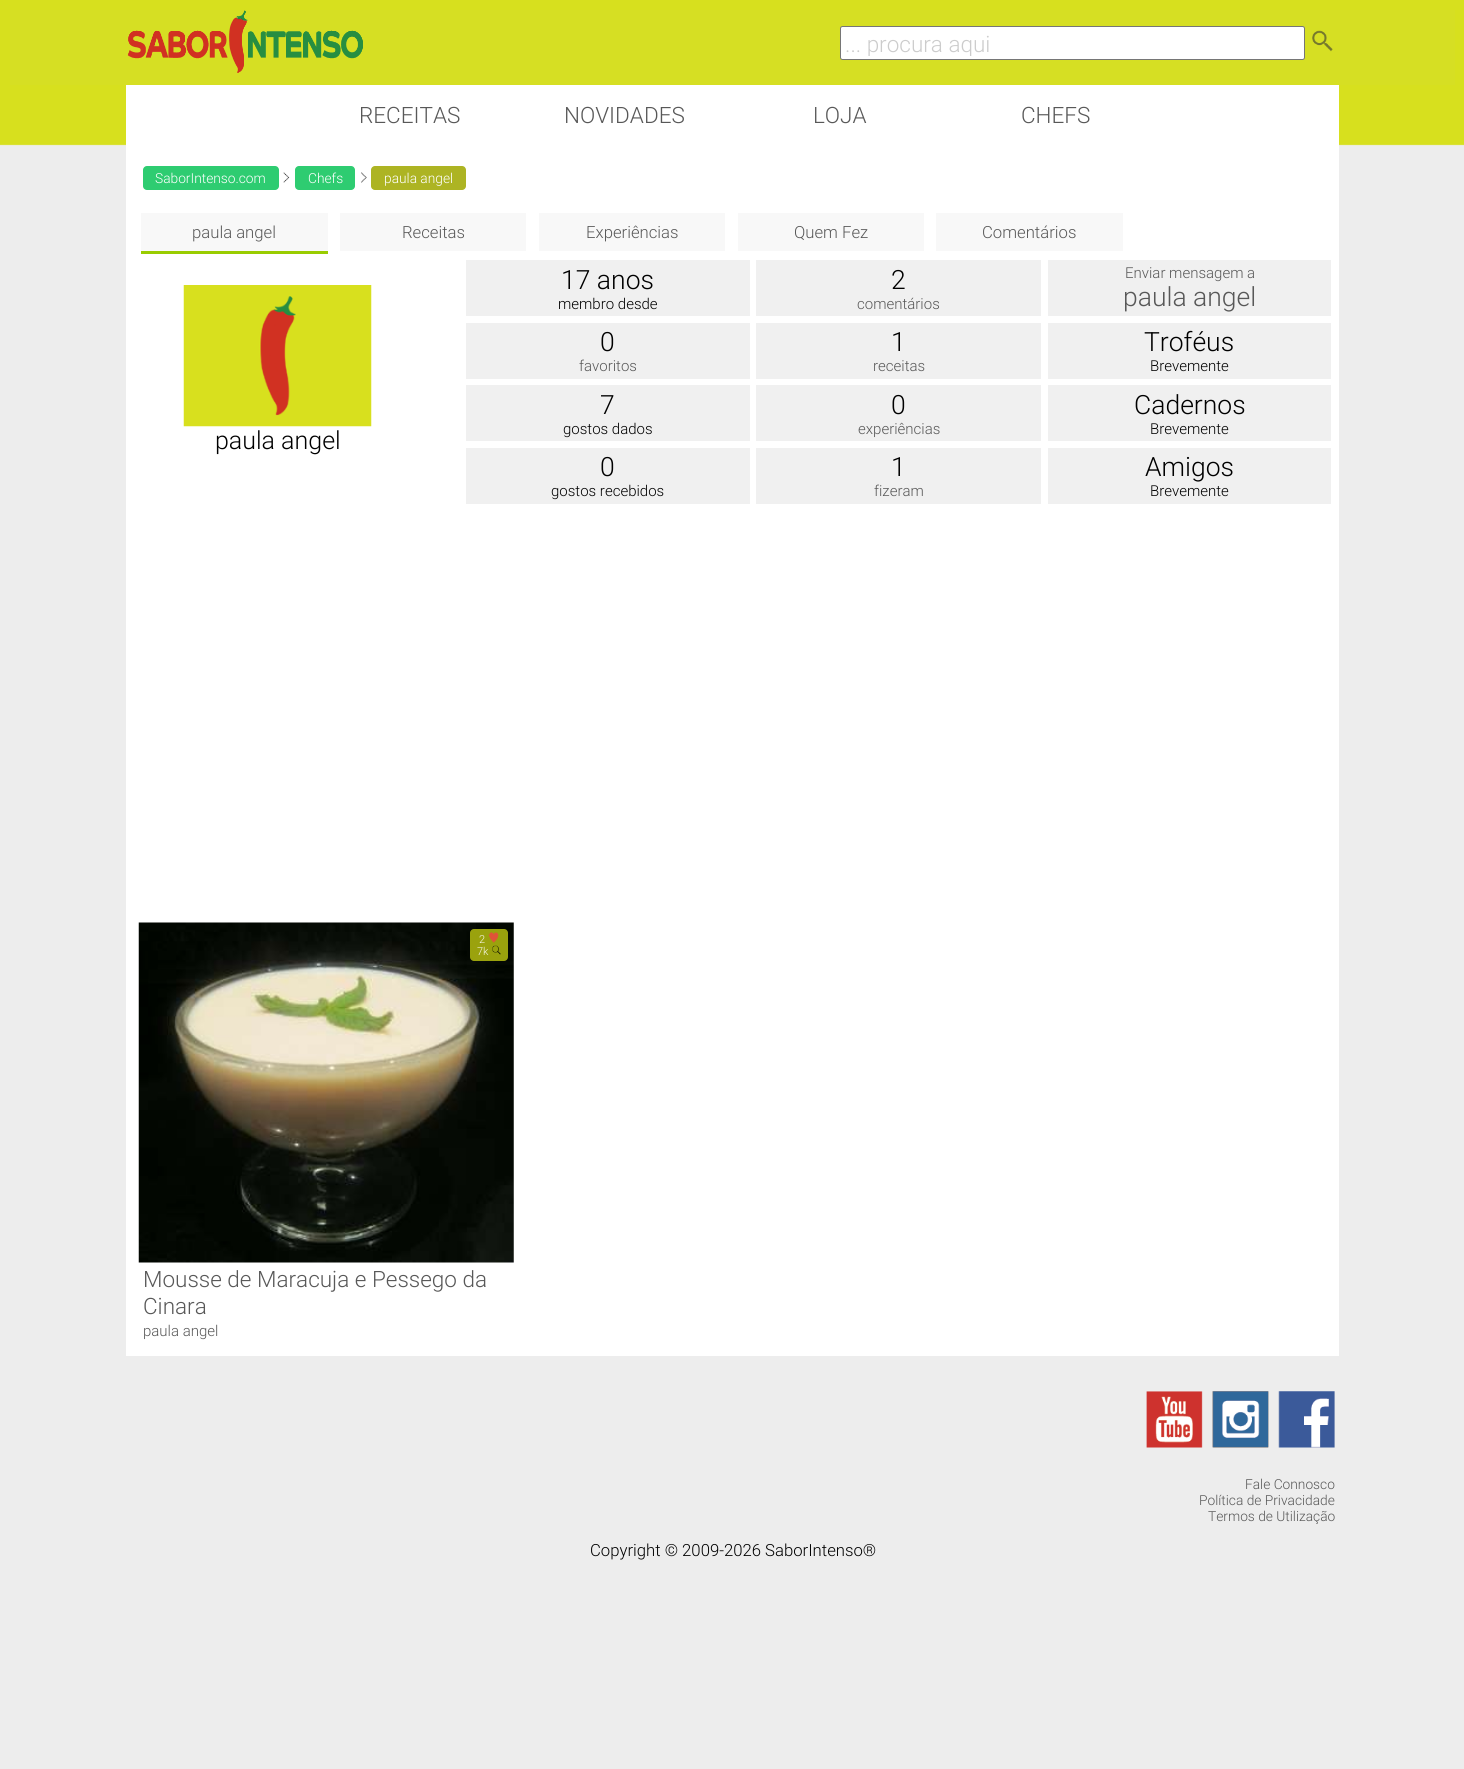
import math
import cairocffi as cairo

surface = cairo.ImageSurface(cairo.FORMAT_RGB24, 1464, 1769)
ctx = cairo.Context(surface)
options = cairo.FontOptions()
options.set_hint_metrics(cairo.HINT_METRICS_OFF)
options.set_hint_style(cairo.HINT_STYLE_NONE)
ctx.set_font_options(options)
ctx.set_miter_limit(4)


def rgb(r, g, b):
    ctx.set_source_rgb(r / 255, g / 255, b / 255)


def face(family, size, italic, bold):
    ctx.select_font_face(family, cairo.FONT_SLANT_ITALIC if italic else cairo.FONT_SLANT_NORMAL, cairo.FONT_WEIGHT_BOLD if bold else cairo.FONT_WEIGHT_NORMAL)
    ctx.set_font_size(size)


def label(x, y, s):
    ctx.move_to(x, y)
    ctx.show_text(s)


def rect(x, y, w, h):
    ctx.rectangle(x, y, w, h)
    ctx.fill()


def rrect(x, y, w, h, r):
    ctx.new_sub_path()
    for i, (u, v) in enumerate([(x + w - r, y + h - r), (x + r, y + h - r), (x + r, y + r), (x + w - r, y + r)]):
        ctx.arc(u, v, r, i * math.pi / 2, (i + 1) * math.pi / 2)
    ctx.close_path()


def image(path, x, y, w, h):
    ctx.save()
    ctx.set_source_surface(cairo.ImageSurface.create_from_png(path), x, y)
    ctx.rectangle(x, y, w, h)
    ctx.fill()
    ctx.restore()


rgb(237, 237, 237)
ctx.paint()
image('image0.png', 0, 0, 1464, 146)
rgb(214, 223, 35)
rect(10, 10, 1445, 75)
image('image1.png', 127, 10, 236, 63)
rgb(255, 255, 255)
rrect(840.5, 26.5, 464, 33, 2)
ctx.fill_preserve()
rgb(118, 118, 118)
ctx.set_line_width(1)
ctx.stroke()
ctx.save()
ctx.rectangle(845, 30, 455, 26)
ctx.clip()
face('Roboto Light', 22.5, 0, 0)
rgb(204, 204, 204)
label(845, 52, '... procura aqui')
ctx.restore()
image('image2.png', 1312, 30, 21, 22)
rgb(255, 255, 255)
rect(126, 85, 1213, 1271)
face('Roboto Light', 22.5, 0, 0)
rgb(88, 88, 88)
label(359, 123, 'RECEITAS')
label(564, 123, 'NOVIDADES')
label(813, 123, 'LOJA')
label(1021, 123, 'CHEFS')
rgb(46, 204, 113)
rrect(143, 166, 136, 24, 4)
ctx.fill()
face('Roboto Light', 13.75, 0, 0)
rgb(255, 255, 255)
label(155, 183, 'SaborIntenso.com')
image('image3.png', 283, 172, 7, 11)
rgb(46, 204, 113)
rrect(295, 166, 60, 24, 4)
ctx.fill()
rgb(255, 255, 255)
label(308, 183, 'Chefs')
image('image4.png', 361, 172, 6, 11)
rgb(173, 180, 35)
rrect(371, 166, 95, 24, 4)
ctx.fill()
rgb(255, 255, 255)
label(384, 183, 'paula angel')
rgb(248, 248, 248)
rect(141, 213, 187, 38)
rgb(153, 204, 0)
rect(141, 251, 187, 3)
face('Roboto Light', 16.7, 0, 0)
rgb(88, 88, 88)
label(192, 238, 'paula angel')
rgb(248, 248, 248)
rect(340, 213, 186, 38)
rgb(88, 88, 88)
label(402, 238, 'Receitas')
rgb(248, 248, 248)
rect(539, 213, 186, 38)
rgb(88, 88, 88)
label(586, 238, 'Experiências')
rgb(248, 248, 248)
rect(738, 213, 186, 38)
rgb(88, 88, 88)
label(794, 238, 'Quem Fez')
rgb(248, 248, 248)
rect(936, 213, 187, 38)
rgb(88, 88, 88)
label(982, 238, 'Comentários')
rgb(240, 240, 240)
rect(466, 260, 284, 56)
face('Roboto Light', 26.5, 0, 0)
rgb(0, 0, 0)
label(561, 289, '17 anos')
face('Roboto Light', 15, 0, 0)
label(558, 309, 'membro desde')
rgb(240, 240, 240)
rect(466, 323, 284, 56)
face('Roboto Light', 26.5, 0, 0)
rgb(0, 0, 0)
label(600, 351, '0')
face('Roboto Light', 15, 0, 0)
rgb(88, 88, 88)
label(579, 371, 'favoritos')
rgb(240, 240, 240)
rect(756, 260, 285, 56)
face('Roboto Light', 26.5, 0, 0)
rgb(0, 0, 0)
label(891, 289, '2')
face('Roboto Light', 15, 0, 0)
rgb(88, 88, 88)
label(857, 309, 'comentários')
rgb(240, 240, 240)
rect(756, 323, 285, 56)
face('Roboto Light', 26.5, 0, 0)
rgb(0, 0, 0)
label(891, 351, '1')
face('Roboto Light', 15, 0, 0)
rgb(88, 88, 88)
label(873, 371, 'receitas')
rgb(240, 240, 240)
rect(756, 385, 285, 56)
face('Roboto Light', 26.5, 0, 0)
rgb(0, 0, 0)
label(891, 414, '0')
face('Roboto Light', 15, 0, 0)
rgb(88, 88, 88)
label(858, 434, 'experiências')
rgb(240, 240, 240)
rect(756, 448, 285, 56)
face('Roboto Light', 26.5, 0, 0)
rgb(0, 0, 0)
label(891, 476, '1')
face('Roboto Light', 15, 0, 0)
rgb(88, 88, 88)
label(874, 496, 'fizeram')
rgb(240, 240, 240)
rect(1048, 260, 283, 56)
rgb(88, 88, 88)
label(1125, 278, 'Enviar mensagem a')
face('Roboto Light', 26.5, 0, 0)
label(1123, 306, 'paula angel')
rgb(240, 240, 240)
rect(1048, 323, 283, 56)
rgb(0, 0, 0)
label(1144, 351, 'Troféus')
face('Roboto Light', 15, 0, 0)
label(1150, 371, 'Brevemente')
rgb(240, 240, 240)
rect(1048, 385, 283, 56)
face('Roboto Light', 26.5, 0, 0)
rgb(0, 0, 0)
label(1134, 414, 'Cadernos')
face('Roboto Light', 15, 0, 0)
label(1150, 434, 'Brevemente')
rgb(240, 240, 240)
rect(1048, 448, 283, 56)
face('Roboto Light', 26.5, 0, 0)
rgb(0, 0, 0)
label(1145, 476, 'Amigos')
face('Roboto Light', 15, 0, 0)
label(1150, 496, 'Brevemente')
image('image5.png', 183, 285, 189, 142)
face('Roboto Light', 25, 0, 0)
label(215, 449, 'paula angel')
rgb(240, 240, 240)
rect(466, 385, 284, 56)
face('Roboto Light', 26.5, 0, 0)
rgb(0, 0, 0)
label(600, 414, '7')
face('Roboto Light', 15, 0, 0)
label(563, 434, 'gostos dados')
rgb(240, 240, 240)
rect(466, 448, 284, 56)
face('Roboto Light', 26.5, 0, 0)
rgb(0, 0, 0)
label(600, 476, '0')
face('Roboto Light', 15, 0, 0)
label(551, 496, 'gostos recebidos')
image('image6.png', 138, 922, 376, 341)
ctx.set_source_rgba(0.671, 0.702, 0.059, 0.9)
rrect(470, 929, 38, 32, 4)
ctx.fill()
face('Roboto Light', 11, 0, 0)
rgb(245, 246, 231)
label(479, 943, '2')
image('image7.png', 488, 932, 11, 11)
label(477, 955, '7k')
image('image8.png', 492, 945, 9, 10)
face('Roboto Light', 22.5, 0, 0)
rgb(88, 88, 88)
label(143, 1287, 'Mousse de Maracuja e Pessego da')
label(143, 1314, 'Cinara')
face('Roboto Light', 15, 0, 0)
label(143, 1336, 'paula angel')
image('image9.png', 1146, 1391, 57, 57)
image('image10.png', 1212, 1391, 57, 57)
image('image11.png', 1278, 1391, 57, 57)
face('Roboto Light', 13.75, 0, 0)
label(1245, 1489, 'Fale Connosco')
label(1199, 1505, 'Política de Privacidade')
label(1208, 1521, 'Termos de Utilização')
face('Roboto Light', 16.7, 0, 0)
rgb(0, 0, 0)
label(590, 1556, 'Copyright © 2009-2026 SaborIntenso®')
surface.write_to_png('render.png')
